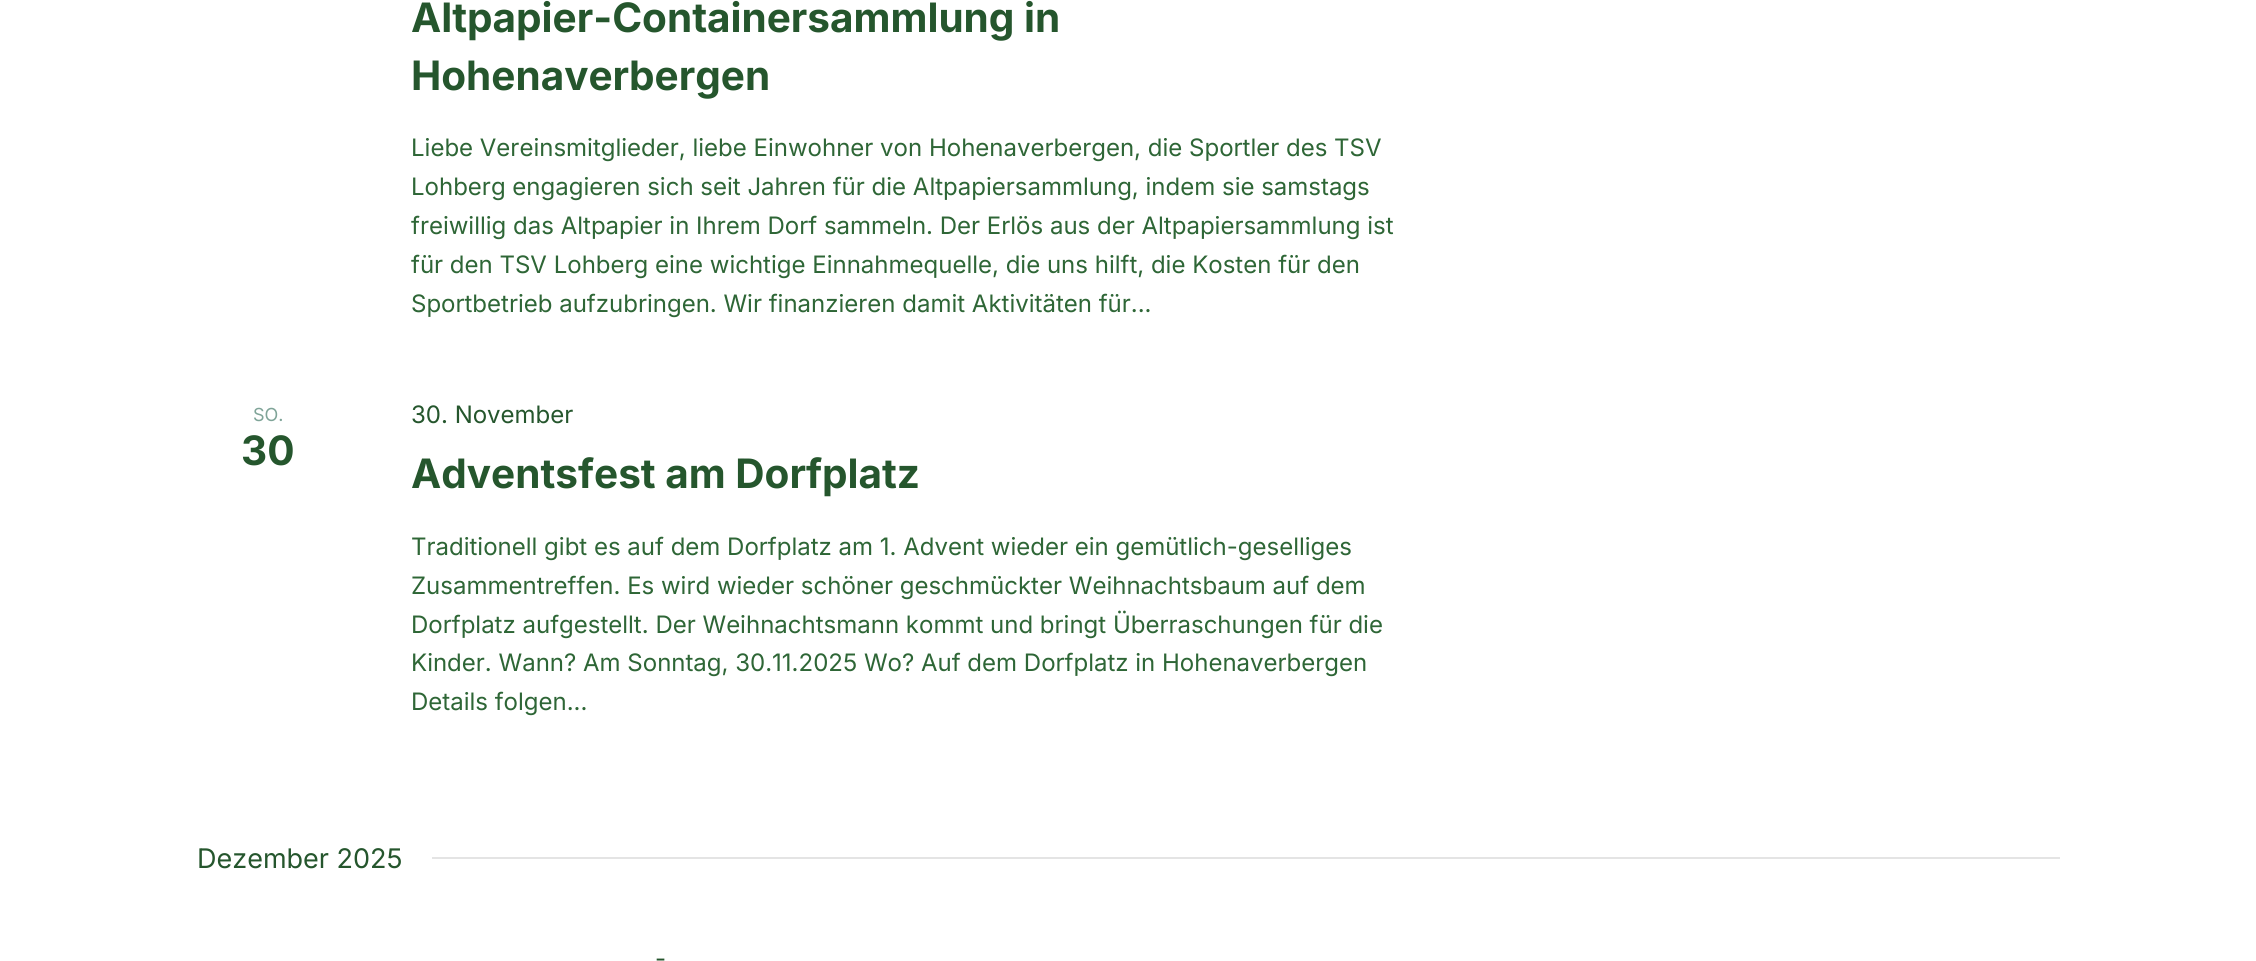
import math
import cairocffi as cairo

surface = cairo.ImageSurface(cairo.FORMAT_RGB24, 2256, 961)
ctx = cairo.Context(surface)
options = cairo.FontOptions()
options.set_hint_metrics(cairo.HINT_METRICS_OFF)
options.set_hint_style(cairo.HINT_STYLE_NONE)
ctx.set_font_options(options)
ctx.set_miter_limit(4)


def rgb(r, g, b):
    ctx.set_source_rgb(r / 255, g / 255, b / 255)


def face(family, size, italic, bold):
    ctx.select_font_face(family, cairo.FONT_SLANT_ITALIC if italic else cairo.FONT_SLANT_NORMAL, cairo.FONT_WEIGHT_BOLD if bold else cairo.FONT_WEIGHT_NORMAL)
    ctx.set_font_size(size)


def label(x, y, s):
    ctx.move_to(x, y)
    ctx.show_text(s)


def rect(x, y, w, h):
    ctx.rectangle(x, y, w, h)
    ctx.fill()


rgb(255, 255, 255)
ctx.paint()
face('Inter', 40.5, 0, 1)
rgb(37, 86, 45)
label(411, 32, 'Altpapier-Containersammlung in')
label(411, 90, 'Hohenaverbergen')
face('Inter', 24, 0, 0)
rgb(46, 102, 54)
label(411, 156, 'Liebe Vereinsmitglieder, liebe Einwohner von Hohenaverbergen, die Sportler des TSV')
label(411, 195, 'Lohberg engagieren sich seit Jahren für die Altpapiersammlung, indem sie samstags')
label(411, 234, 'freiwillig das Altpapier in Ihrem Dorf sammeln. Der Erlös aus der Altpapiersammlung ist')
label(411, 273, 'für den TSV Lohberg eine wichtige Einnahmequelle, die uns hilft, die Kosten für den')
label(411, 312, 'Sportbetrieb aufzubringen. Wir finanzieren damit Aktivitäten für...')
face('Inter', 18, 0, 0)
rgb(127, 164, 152)
label(253, 421, 'SO.')
face('Inter', 40.5, 0, 1)
rgb(37, 86, 45)
label(241, 465, '30')
face('Inter', 24, 0, 0)
label(411, 423, '30. November')
face('Inter', 40.5, 0, 1)
label(411, 488, 'Adventsfest am Dorfplatz')
face('Inter', 24, 0, 0)
rgb(46, 102, 54)
label(411, 555, 'Traditionell gibt es auf dem Dorfplatz am 1. Advent wieder ein gemütlich-geselliges')
label(411, 594, 'Zusammentreffen. Es wird wieder schöner geschmückter Weihnachtsbaum auf dem')
label(411, 633, 'Dorfplatz aufgestellt. Der Weihnachtsmann kommt und bringt Überraschungen für die')
label(411, 671, 'Kinder. Wann? Am Sonntag, 30.11.2025 Wo? Auf dem Dorfplatz in Hohenaverbergen')
label(411, 710, 'Details folgen...')
face('Inter', 27, 0, 0)
rgb(37, 86, 45)
label(197, 868, 'Dezember 2025')
rgb(228, 228, 228)
rect(432, 857, 1628, 2)
face('Inter', 24, 0, 0)
rgb(37, 86, 45)
label(655, 967, '-')
surface.write_to_png('render.png')
